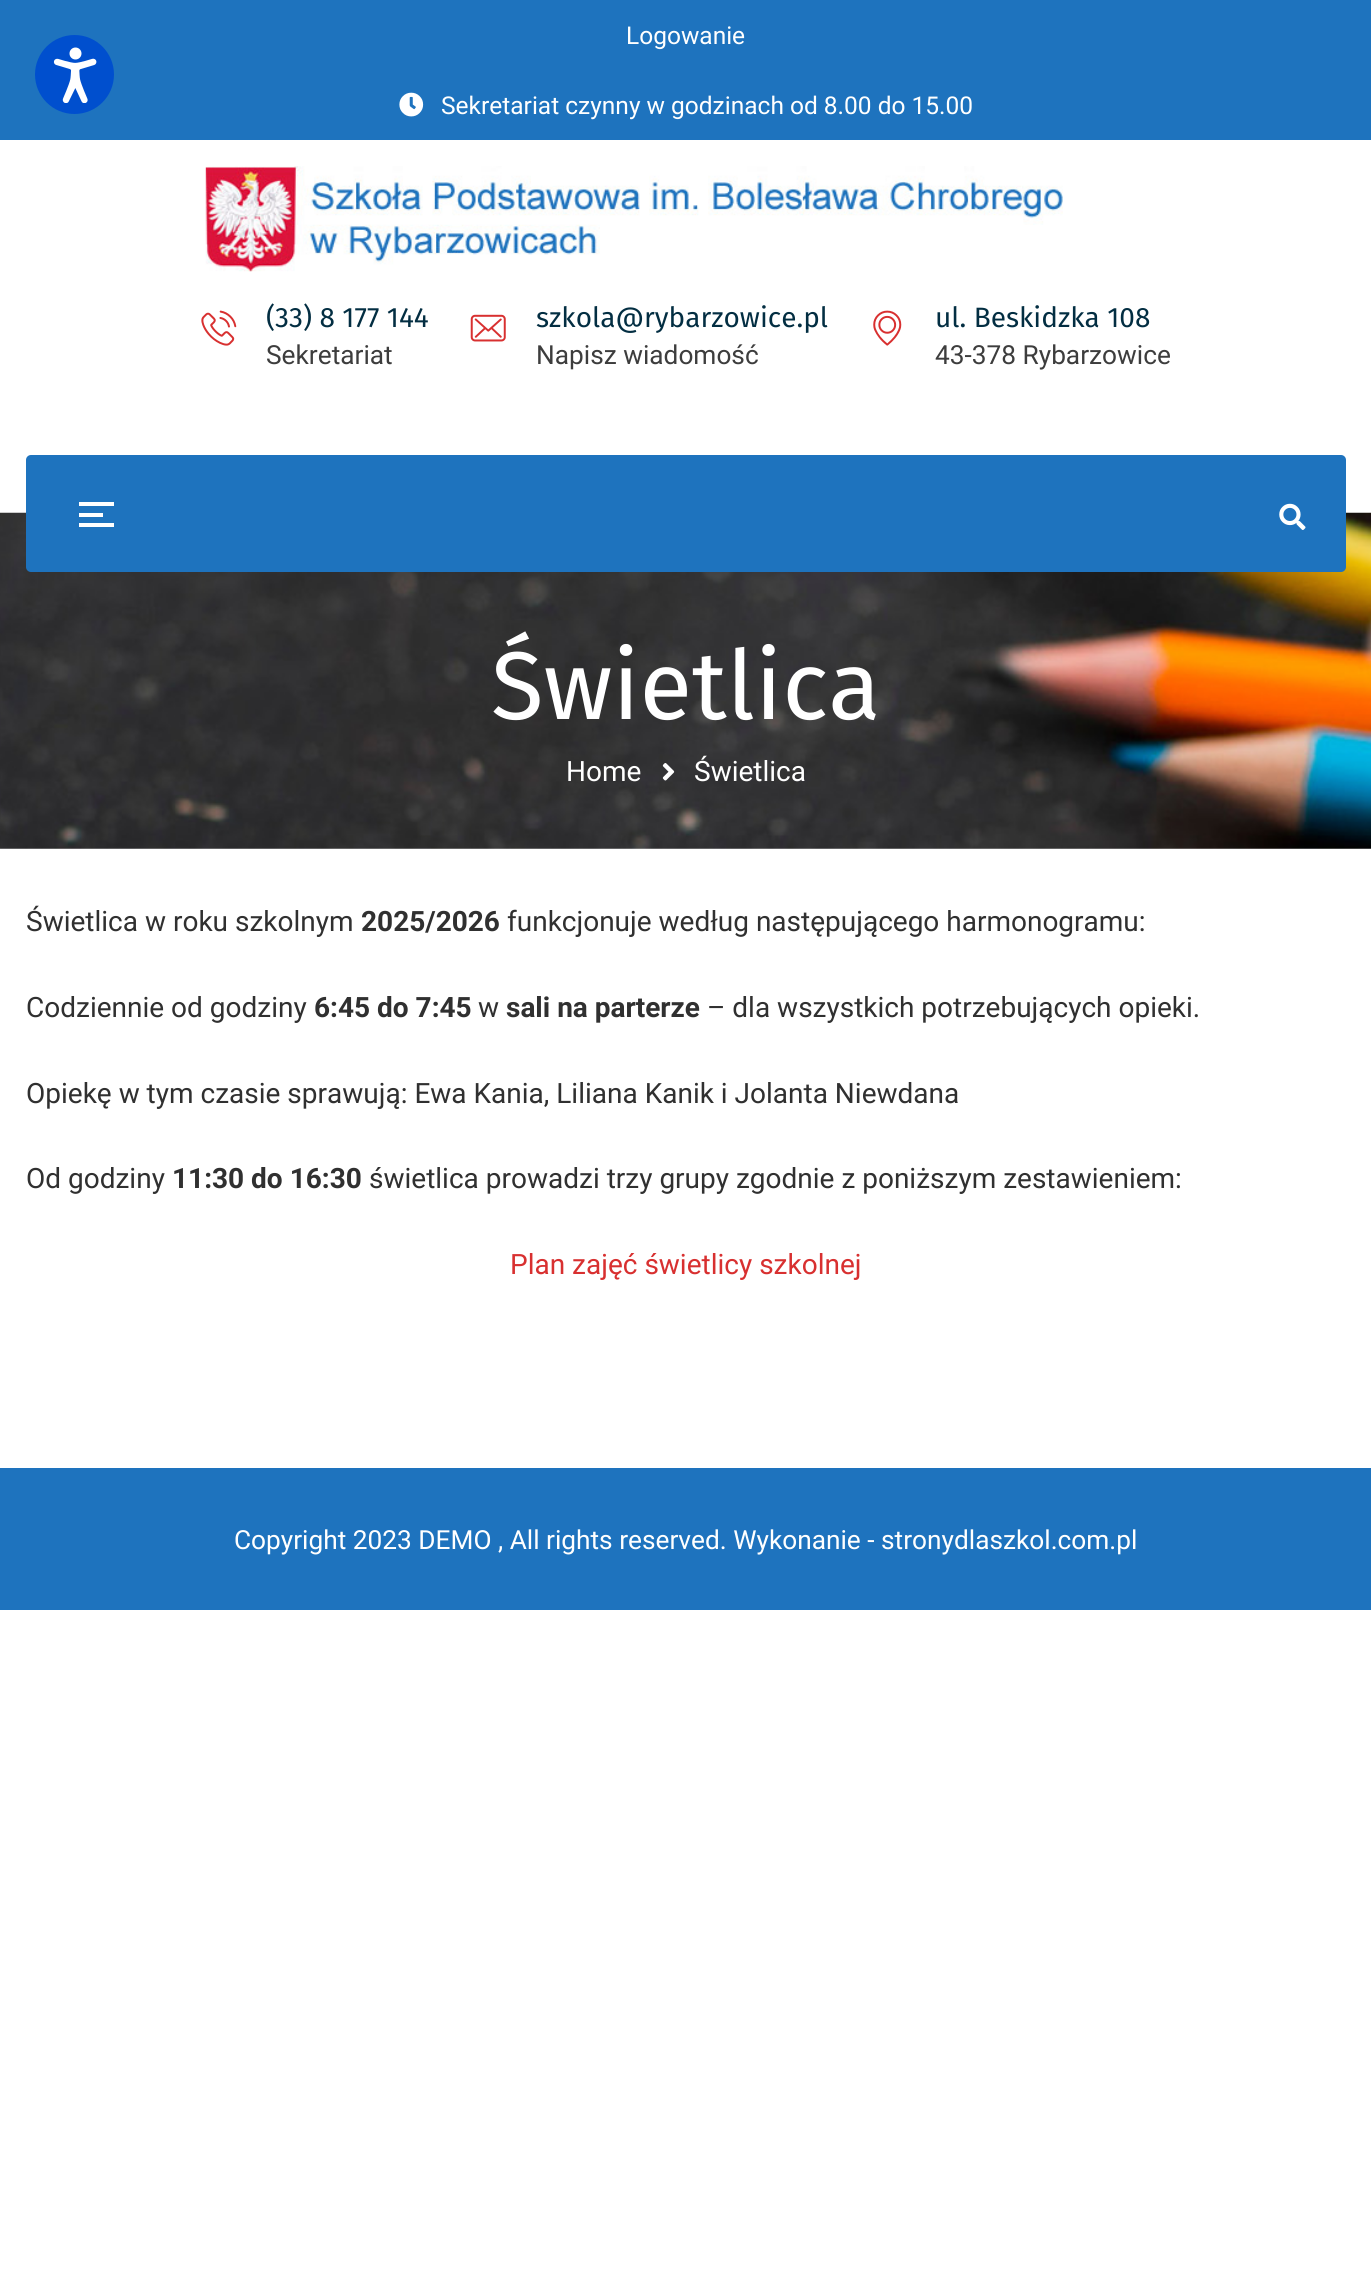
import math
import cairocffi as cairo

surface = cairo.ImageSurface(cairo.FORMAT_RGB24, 1371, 2279)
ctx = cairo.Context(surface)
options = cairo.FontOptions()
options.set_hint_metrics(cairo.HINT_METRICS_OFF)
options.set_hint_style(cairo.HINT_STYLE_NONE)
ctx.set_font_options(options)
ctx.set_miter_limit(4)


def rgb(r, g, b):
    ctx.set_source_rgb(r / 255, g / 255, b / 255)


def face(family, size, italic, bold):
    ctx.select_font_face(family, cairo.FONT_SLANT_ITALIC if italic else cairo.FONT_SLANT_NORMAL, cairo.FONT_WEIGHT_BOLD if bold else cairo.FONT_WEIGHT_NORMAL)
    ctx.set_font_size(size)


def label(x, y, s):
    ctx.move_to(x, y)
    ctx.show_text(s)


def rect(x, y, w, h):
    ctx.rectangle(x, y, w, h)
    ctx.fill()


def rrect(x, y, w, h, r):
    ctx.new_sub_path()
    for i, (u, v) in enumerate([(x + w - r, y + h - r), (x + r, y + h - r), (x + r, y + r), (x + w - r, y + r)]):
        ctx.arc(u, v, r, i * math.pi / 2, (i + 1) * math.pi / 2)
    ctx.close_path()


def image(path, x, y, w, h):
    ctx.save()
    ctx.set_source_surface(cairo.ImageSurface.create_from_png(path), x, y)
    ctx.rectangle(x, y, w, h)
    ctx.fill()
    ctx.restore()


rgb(255, 255, 255)
ctx.paint()
rgb(30, 115, 190)
rect(0, 0, 1371, 140)
face('Roboto', 24.5, 0, 0)
rgb(255, 255, 255)
label(626, 44, 'Logowanie')
image('image0.png', 399, 92, 25, 25)
label(441, 114, 'Sekretariat czynny w godzinach od 8.00 do 15.00')
image('image1.png', 205, 166, 858, 106)
image('image2.png', 201, 310, 36, 36)
face('Fira Sans', 28, 0, 0)
rgb(3, 46, 66)
label(266, 327, '(33) 8 177 144')
face('Roboto', 26.25, 0, 0)
rgb(61, 61, 61)
label(266, 364, 'Sekretariat')
image('image3.png', 470, 314, 36, 28)
face('Fira Sans', 28, 0, 0)
rgb(3, 46, 66)
label(536, 327, 'szkola@rybarzowice.pl')
face('Roboto', 26.25, 0, 0)
rgb(61, 61, 61)
label(536, 364, 'Napisz wiadomość')
image('image4.png', 873, 310, 29, 36)
face('Fira Sans', 28, 0, 0)
rgb(3, 46, 66)
label(935, 327, 'ul. Beskidzka 108')
face('Roboto', 26.25, 0, 0)
rgb(61, 61, 61)
label(935, 364, '43-378 Rybarzowice')
image('image6.png', 0, 512, 1371, 337)
rgb(30, 115, 190)
rrect(26, 455, 1320, 117, 5)
ctx.fill()
rgb(255, 255, 255)
rect(79, 502, 35, 4)
rect(79, 513, 24, 4)
rect(79, 523, 35, 4)
image('image5.png', 1279, 503, 27, 27)
face('Fira Sans', 96.25, 0, 0)
label(491, 719, 'Świetlica')
face('Roboto', 28, 0, 0)
label(566, 781, 'Home')
image('image7.png', 662, 763, 13, 18)
label(694, 781, 'Świetlica')
rgb(48, 48, 48)
label(26, 931, 'Świetlica w roku szkolnym')
face('Roboto', 28, 0, 1)
label(361, 931, '2025/2026')
face('Roboto', 28, 0, 0)
label(507, 931, 'funkcjonuje według następującego harmonogramu:')
label(26, 1017, 'Codziennie od godziny')
face('Roboto', 28, 0, 1)
label(314, 1017, '6:45 do 7:45')
face('Roboto', 28, 0, 0)
label(478, 1017, 'w')
face('Roboto', 28, 0, 1)
label(506, 1017, 'sali na parterze')
face('Roboto', 28, 0, 0)
label(707, 1017, '– dla wszystkich potrzebujących opieki.')
label(26, 1103, 'Opiekę w tym czasie sprawują: Ewa Kania, Liliana Kanik i Jolanta Niewdana')
label(26, 1188, 'Od godziny')
face('Roboto', 28, 0, 1)
label(172, 1188, '11:30 do 16:30')
face('Roboto', 28, 0, 0)
label(369, 1188, 'świetlica prowadzi trzy grupy zgodnie z poniższym zestawieniem:')
rgb(216, 48, 48)
label(510, 1274, 'Plan zajęć świetlicy szkolnej')
rgb(30, 115, 190)
rect(0, 1468, 1371, 142)
face('Roboto', 26.25, 0, 0)
rgb(255, 255, 255)
label(234, 1549, 'Copyright 2023 DEMO , All rights reserved. Wykonanie - stronydlaszkol.com.pl')
rgb(0, 79, 206)
ctx.new_path()
ctx.arc(74.5, 74.5, 39.5, 0, 2 * math.pi)
ctx.fill()
image('image8.png', 53, 47, 44, 56)
surface.write_to_png('render.png')
